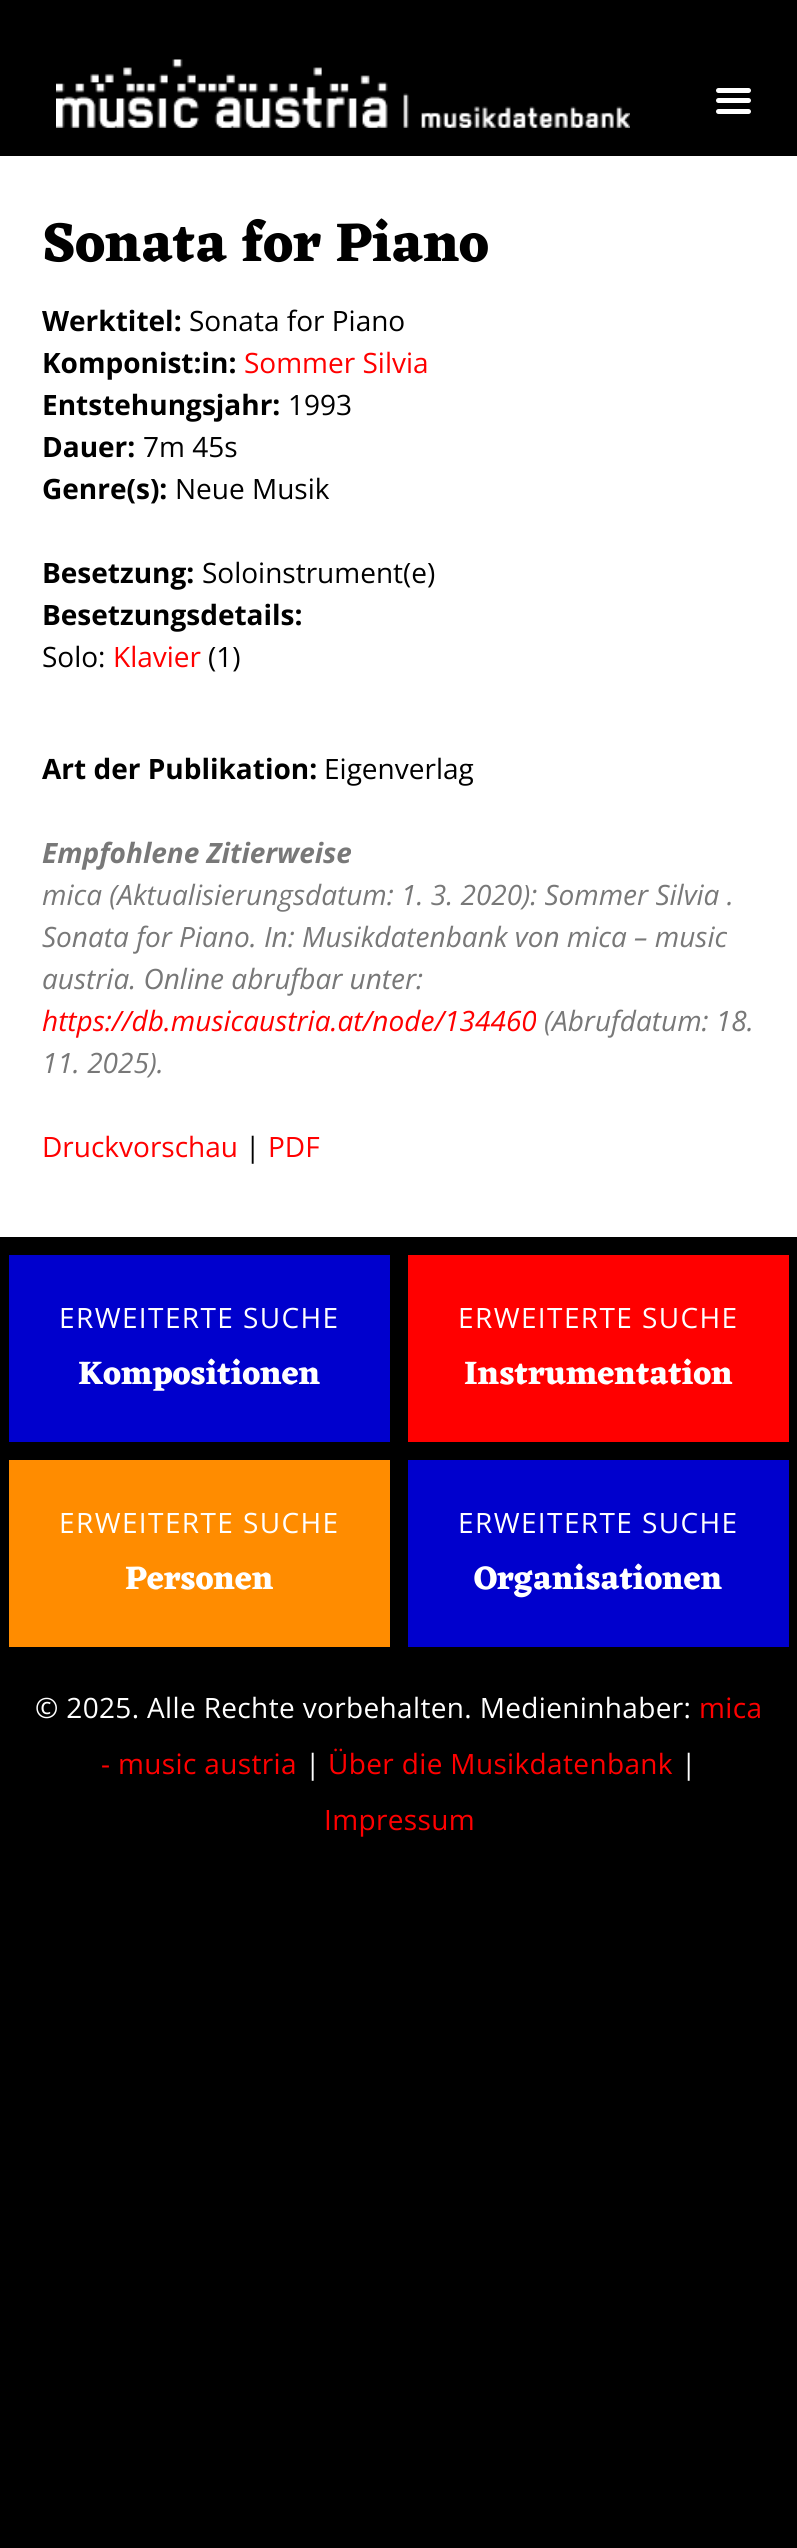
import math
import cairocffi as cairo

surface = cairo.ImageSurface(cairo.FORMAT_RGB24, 797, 2548)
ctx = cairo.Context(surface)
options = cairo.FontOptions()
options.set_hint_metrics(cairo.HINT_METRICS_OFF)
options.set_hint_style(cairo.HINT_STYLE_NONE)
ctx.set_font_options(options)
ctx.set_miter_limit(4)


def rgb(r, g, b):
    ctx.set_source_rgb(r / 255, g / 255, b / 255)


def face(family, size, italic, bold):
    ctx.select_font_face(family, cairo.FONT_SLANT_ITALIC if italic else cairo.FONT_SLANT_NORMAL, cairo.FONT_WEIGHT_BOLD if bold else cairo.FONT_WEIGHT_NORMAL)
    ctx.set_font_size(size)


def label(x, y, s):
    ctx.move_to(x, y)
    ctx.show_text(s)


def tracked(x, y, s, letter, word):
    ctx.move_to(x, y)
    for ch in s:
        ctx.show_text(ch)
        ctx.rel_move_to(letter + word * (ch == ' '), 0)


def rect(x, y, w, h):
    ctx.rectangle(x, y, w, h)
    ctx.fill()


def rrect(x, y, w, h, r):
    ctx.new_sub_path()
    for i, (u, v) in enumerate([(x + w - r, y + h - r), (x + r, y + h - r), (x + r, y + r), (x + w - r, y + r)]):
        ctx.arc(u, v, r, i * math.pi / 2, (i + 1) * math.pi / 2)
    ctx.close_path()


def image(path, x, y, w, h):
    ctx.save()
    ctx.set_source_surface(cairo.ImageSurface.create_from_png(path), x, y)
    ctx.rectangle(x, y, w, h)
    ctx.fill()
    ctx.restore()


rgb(0, 0, 0)
ctx.paint()
rgb(255, 255, 255)
rect(0, 156, 797, 1081)
image('image0.png', 56, 59, 574, 69)
rrect(716, 88, 35, 5, 2.5)
ctx.fill()
rrect(716, 98, 35, 5, 2.5)
ctx.fill()
rrect(716, 109, 35, 5, 2.5)
ctx.fill()
face('Eczar', 56, 0, 1)
rgb(0, 0, 0)
label(42, 261, 'Sonata for Piano')
face('Open Sans', 28, 0, 1)
label(42, 331, 'Werktitel:')
face('Open Sans', 28, 0, 0)
label(189, 331, 'Sonata for Piano')
face('Open Sans', 28, 0, 1)
label(42, 373, 'Komponist:in:')
face('Open Sans', 28, 0, 0)
rgb(255, 0, 0)
label(244, 373, 'Sommer Silvia')
face('Open Sans', 28, 0, 1)
rgb(0, 0, 0)
label(42, 415, 'Entstehungsjahr:')
face('Open Sans', 28, 0, 0)
label(288, 415, '1993')
face('Open Sans', 28, 0, 1)
label(42, 457, 'Dauer:')
face('Open Sans', 28, 0, 0)
label(143, 457, '7m 45s')
face('Open Sans', 28, 0, 1)
label(42, 499, 'Genre(s):')
face('Open Sans', 28, 0, 0)
label(175, 499, 'Neue Musik')
face('Open Sans', 28, 0, 1)
label(42, 583, 'Besetzung:')
face('Open Sans', 28, 0, 0)
label(202, 583, 'Soloinstrument(e)')
face('Open Sans', 28, 0, 1)
label(42, 625, 'Besetzungsdetails:')
face('Open Sans', 28, 0, 0)
label(42, 667, 'Solo:')
rgb(255, 0, 0)
label(113, 667, 'Klavier')
rgb(0, 0, 0)
label(208, 667, '(1)')
face('Open Sans', 28, 0, 1)
label(42, 779, 'Art der Publikation:')
face('Open Sans', 28, 0, 0)
label(324, 779, 'Eigenverlag')
face('Open Sans', 28, 1, 1)
rgb(120, 120, 120)
label(42, 863, 'Empfohlene Zitierweise')
face('Open Sans', 28, 1, 0)
label(42, 905, 'mica (Aktualisierungsdatum: 1. 3. 2020): Sommer Silvia .')
label(42, 947, 'Sonata for Piano. In: Musikdatenbank von mica – music')
label(42, 989, 'austria. Online abrufbar unter:')
rgb(255, 0, 0)
label(42, 1031, 'https://db.musicaustria.at/node/134460')
rgb(120, 120, 120)
label(544, 1031, '(Abrufdatum: 18.')
label(42, 1073, '11. 2025).')
face('Open Sans', 28, 0, 0)
rgb(255, 0, 0)
label(42, 1157, 'Druckvorschau')
rgb(0, 0, 0)
label(245, 1157, '|')
rgb(255, 0, 0)
label(268, 1157, 'PDF')
rgb(0, 0, 205)
rect(9, 1255, 381, 187)
rgb(255, 255, 255)
tracked(59, 1328, 'ERWEITERTE SUCHE', 1.4, 0)
face('Eczar', 33.5, 0, 1)
label(78, 1384, 'Kompositionen')
rgb(255, 0, 0)
rect(408, 1255, 381, 187)
face('Open Sans', 28, 0, 0)
rgb(255, 255, 255)
tracked(458, 1328, 'ERWEITERTE SUCHE', 1.4, 0)
face('Eczar', 33.5, 0, 1)
label(464, 1384, 'Instrumentation')
rgb(255, 140, 0)
rect(9, 1460, 381, 187)
face('Open Sans', 28, 0, 0)
rgb(255, 255, 255)
tracked(59, 1533, 'ERWEITERTE SUCHE', 1.4, 0)
face('Eczar', 33.5, 0, 1)
label(125, 1589, 'Personen')
rgb(0, 0, 205)
rect(408, 1460, 381, 187)
face('Open Sans', 28, 0, 0)
rgb(255, 255, 255)
tracked(458, 1533, 'ERWEITERTE SUCHE', 1.4, 0)
face('Eczar', 33.5, 0, 1)
label(474, 1589, 'Organisationen')
face('Open Sans', 28, 0, 0)
tracked(35, 1718, '© 2025. Alle Rechte vorbehalten. Medieninhaber:', 0.35, 0)
rgb(255, 0, 0)
tracked(699, 1718, 'mica', 0.35, 0)
tracked(101, 1774, '- music austria', 0.35, 0)
rgb(255, 255, 255)
tracked(305, 1774, '|', 0.35, 0)
rgb(255, 0, 0)
tracked(328, 1774, 'Über die Musikdatenbank', 0.35, 0)
rgb(255, 255, 255)
tracked(681, 1774, '|', 0.35, 0)
rgb(255, 0, 0)
tracked(324, 1830, 'Impressum', 0.35, 0)
surface.write_to_png('render.png')
